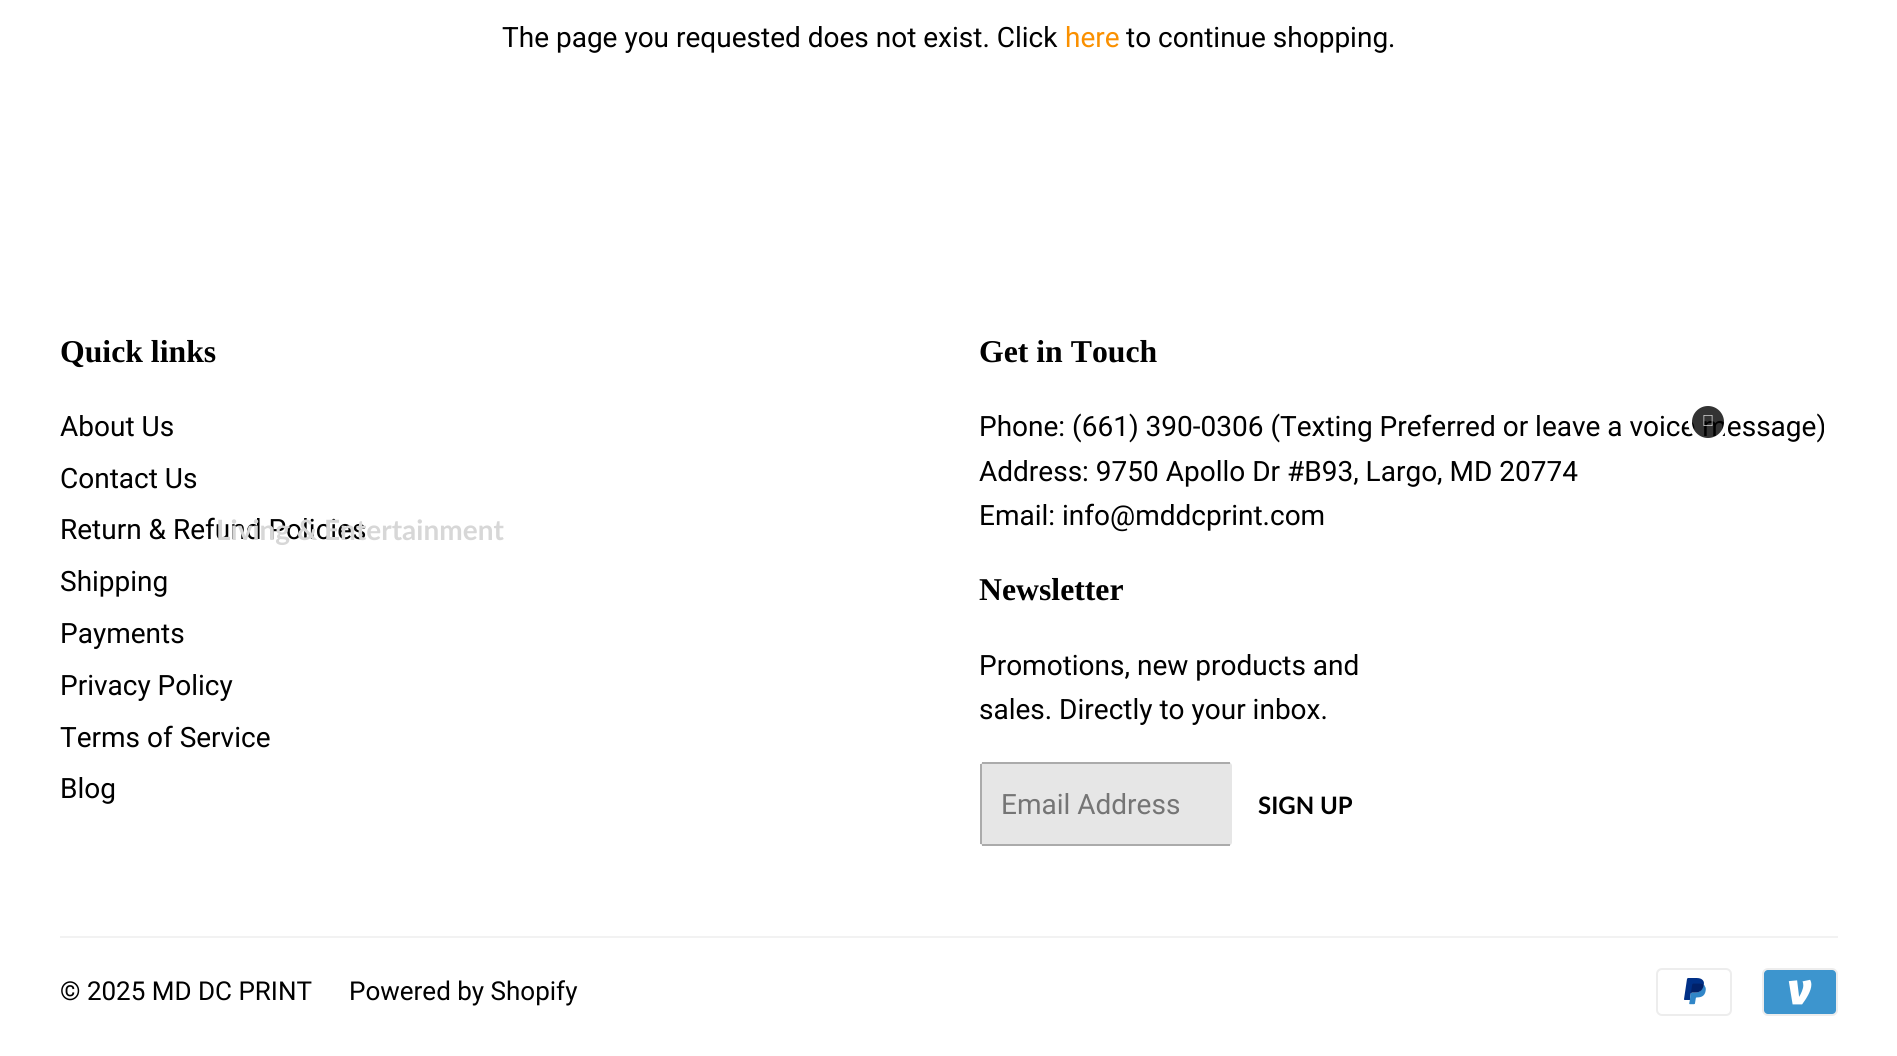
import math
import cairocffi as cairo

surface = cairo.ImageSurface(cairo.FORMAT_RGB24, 1897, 1056)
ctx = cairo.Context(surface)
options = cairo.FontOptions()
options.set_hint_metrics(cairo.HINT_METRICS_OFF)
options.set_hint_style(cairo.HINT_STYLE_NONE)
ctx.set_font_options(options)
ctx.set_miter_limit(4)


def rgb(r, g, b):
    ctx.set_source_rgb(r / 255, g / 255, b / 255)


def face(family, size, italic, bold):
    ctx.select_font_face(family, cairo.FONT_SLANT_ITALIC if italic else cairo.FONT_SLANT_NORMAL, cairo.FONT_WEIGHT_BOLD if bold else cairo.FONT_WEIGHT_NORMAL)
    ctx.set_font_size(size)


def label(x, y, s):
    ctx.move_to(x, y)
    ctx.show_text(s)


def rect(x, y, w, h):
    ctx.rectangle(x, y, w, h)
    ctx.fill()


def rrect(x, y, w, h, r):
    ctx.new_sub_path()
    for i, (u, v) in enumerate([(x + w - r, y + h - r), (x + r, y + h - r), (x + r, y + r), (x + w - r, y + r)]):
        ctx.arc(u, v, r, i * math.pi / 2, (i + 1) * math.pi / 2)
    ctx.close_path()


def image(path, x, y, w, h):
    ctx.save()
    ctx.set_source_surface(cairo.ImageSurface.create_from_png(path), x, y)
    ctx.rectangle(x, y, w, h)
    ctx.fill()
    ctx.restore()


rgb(255, 255, 255)
ctx.paint()
face('Roboto', 28, 0, 0)
rgb(0, 0, 0)
label(502, 47, 'The page you requested does not exist. Click')
rgb(250, 144, 0)
label(1065, 47, 'here')
rgb(0, 0, 0)
label(1126, 47, 'to continue shopping.')
face('Liberation Serif', 31.75, 0, 1)
label(60, 362, 'Quick links')
face('Roboto', 28, 0, 0)
label(60, 436, 'About Us')
label(60, 488, 'Contact Us')
label(60, 539, 'Return & Refund Policies')
label(60, 591, 'Shipping')
label(60, 643, 'Payments')
label(60, 695, 'Privacy Policy')
label(60, 747, 'Terms of Service')
label(60, 798, 'Blog')
face('Liberation Serif', 31.75, 0, 1)
label(979, 362, 'Get in Touch')
face('Roboto', 28, 0, 0)
label(979, 436, 'Phone: (661) 390-0306 (Texting Preferred or leave a voice message)')
label(979, 481, 'Address: 9750 Apollo Dr #B93, Largo, MD 20774')
label(979, 525, 'Email: info@mddcprint.com')
face('Liberation Serif', 31.75, 0, 1)
label(979, 600, 'Newsletter')
face('Roboto', 28, 0, 0)
label(979, 675, 'Promotions, new products and')
label(979, 719, 'sales. Directly to your inbox.')
rgb(230, 230, 230)
rrect(980, 762, 252, 84, 4)
ctx.fill()
rgb(171, 171, 171)
rect(982, 762, 248, 2)
rect(982, 844, 248, 2)
rect(980, 764, 2, 80)
rgb(117, 117, 117)
label(1001, 814, 'Email Address')
face('Lato', 24, 0, 1)
rgb(0, 0, 0)
label(1258, 814, 'SIGN UP')
rgb(242, 242, 242)
rect(60, 936, 1778, 2)
face('Roboto', 26, 0, 0)
rgb(0, 0, 0)
label(60, 1000, '© 2025 MD DC PRINT')
label(349, 1000, 'Powered by Shopify')
image('image0.png', 1656, 968, 76, 48)
image('image1.png', 1762, 968, 76, 48)
ctx.set_source_rgba(0, 0, 0, 0.8)
ctx.arc(1708, 422, 18, 0, 2 * math.pi)
ctx.fill_preserve()
rgb(255, 255, 255)
ctx.set_line_width(4)
ctx.stroke()
image('image2.png', 1703, 415, 10, 11)
face('Lato', 28, 0, 1)
rgb(215, 215, 215)
label(216, 540, 'Living & Entertainment')
surface.write_to_png('render.png')
